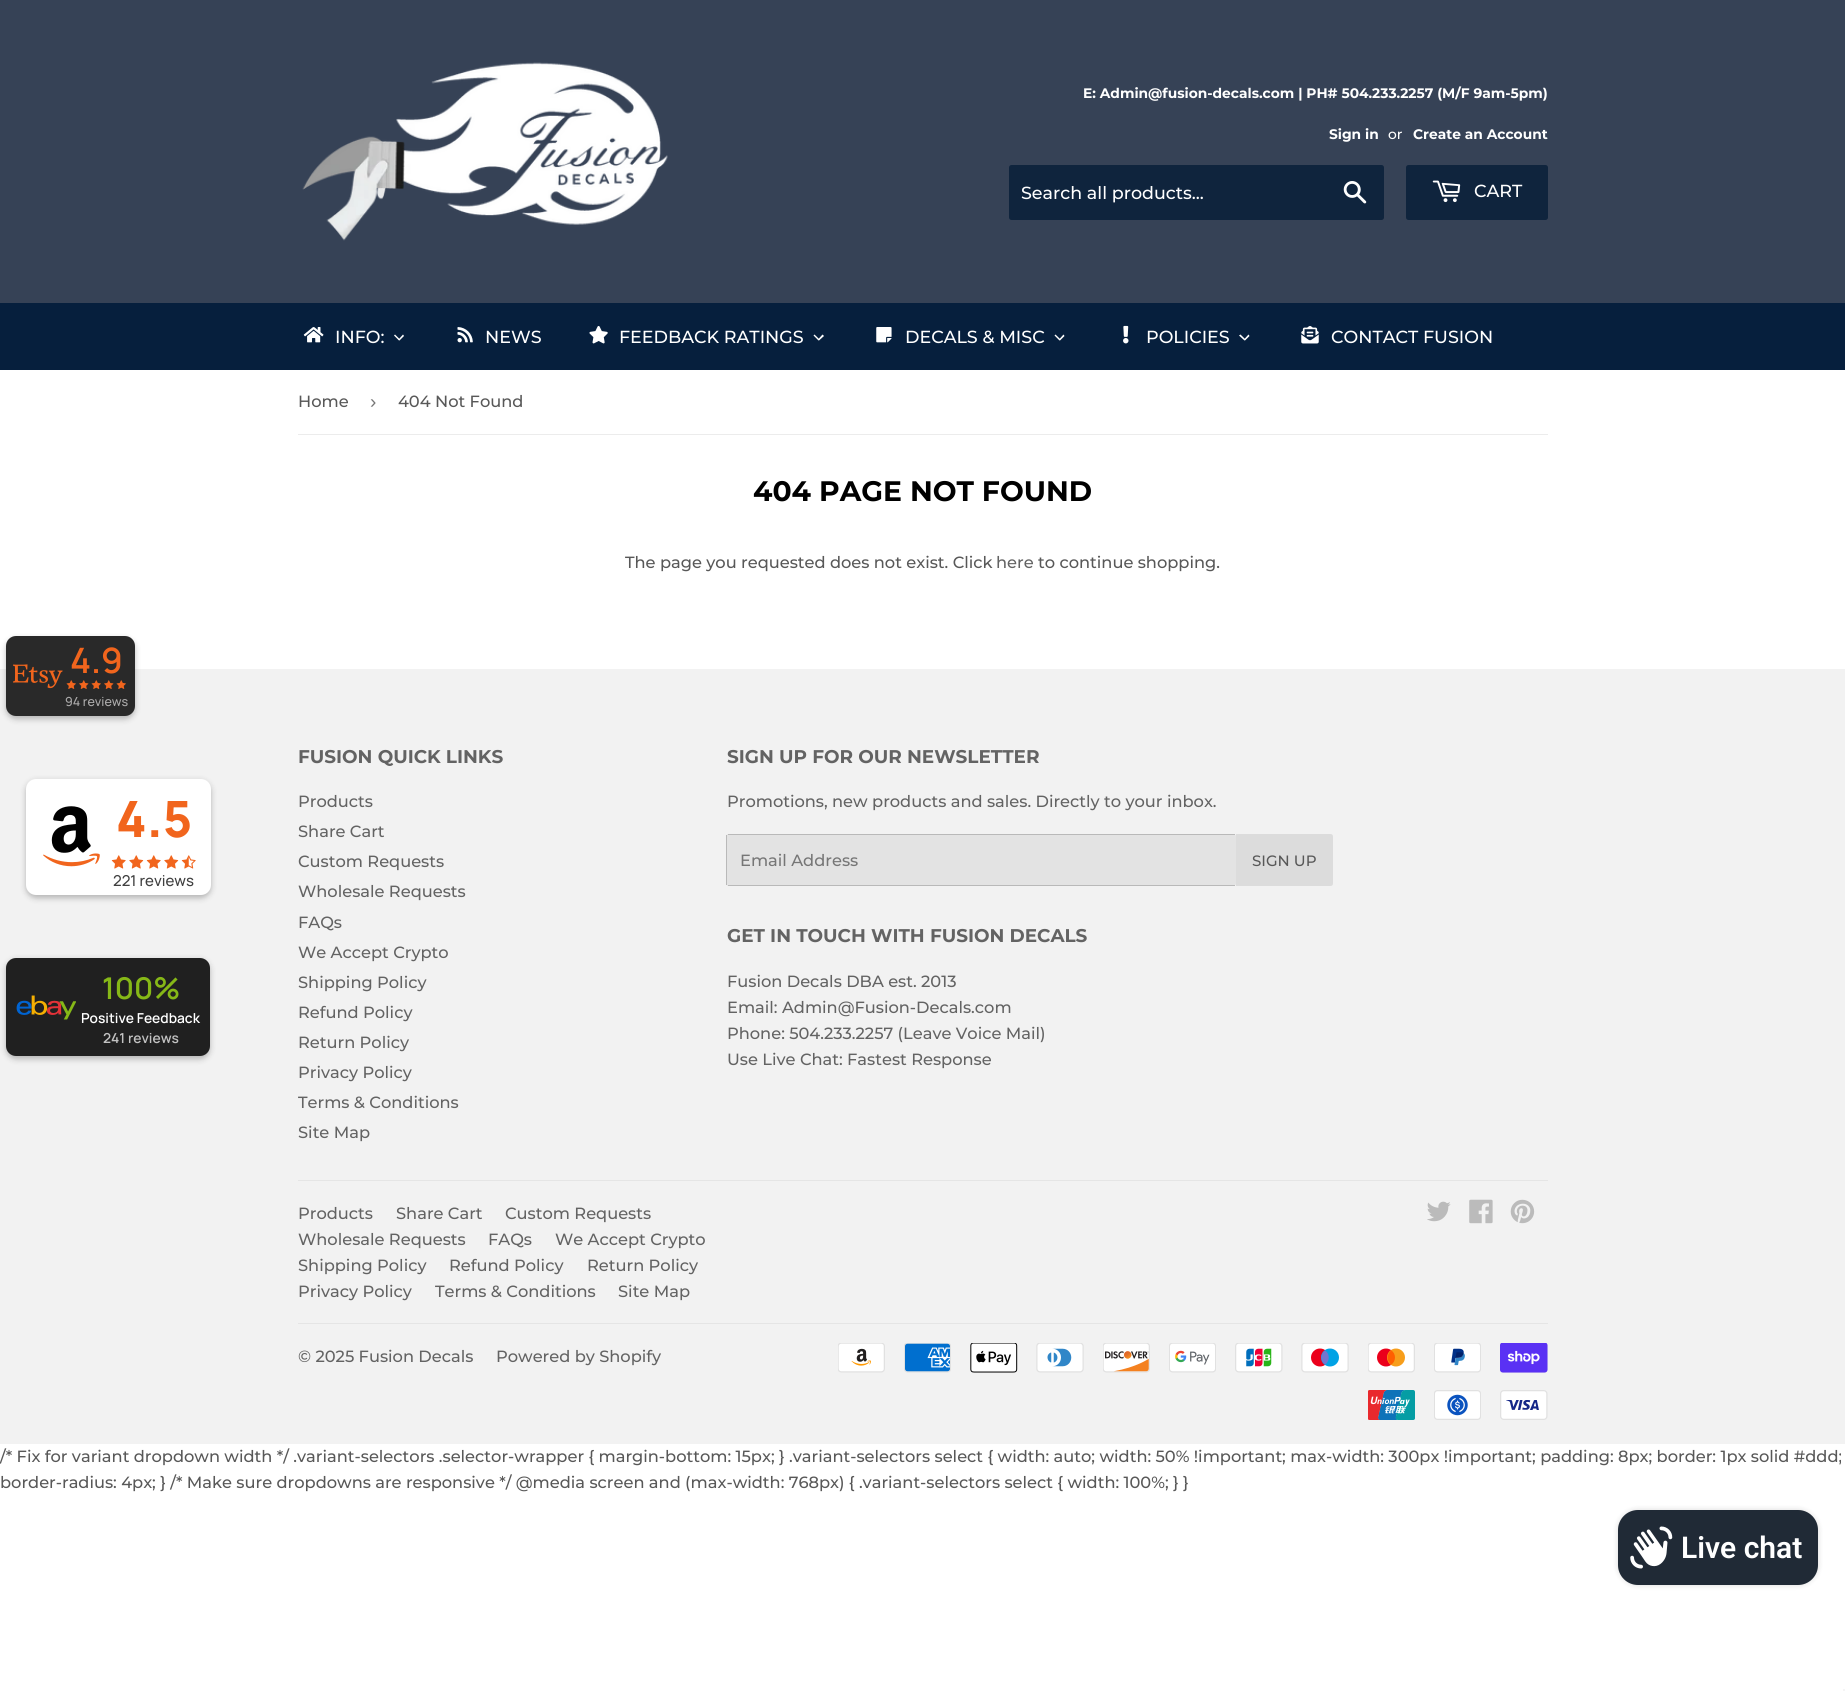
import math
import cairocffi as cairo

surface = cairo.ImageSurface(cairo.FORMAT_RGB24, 1845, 1691)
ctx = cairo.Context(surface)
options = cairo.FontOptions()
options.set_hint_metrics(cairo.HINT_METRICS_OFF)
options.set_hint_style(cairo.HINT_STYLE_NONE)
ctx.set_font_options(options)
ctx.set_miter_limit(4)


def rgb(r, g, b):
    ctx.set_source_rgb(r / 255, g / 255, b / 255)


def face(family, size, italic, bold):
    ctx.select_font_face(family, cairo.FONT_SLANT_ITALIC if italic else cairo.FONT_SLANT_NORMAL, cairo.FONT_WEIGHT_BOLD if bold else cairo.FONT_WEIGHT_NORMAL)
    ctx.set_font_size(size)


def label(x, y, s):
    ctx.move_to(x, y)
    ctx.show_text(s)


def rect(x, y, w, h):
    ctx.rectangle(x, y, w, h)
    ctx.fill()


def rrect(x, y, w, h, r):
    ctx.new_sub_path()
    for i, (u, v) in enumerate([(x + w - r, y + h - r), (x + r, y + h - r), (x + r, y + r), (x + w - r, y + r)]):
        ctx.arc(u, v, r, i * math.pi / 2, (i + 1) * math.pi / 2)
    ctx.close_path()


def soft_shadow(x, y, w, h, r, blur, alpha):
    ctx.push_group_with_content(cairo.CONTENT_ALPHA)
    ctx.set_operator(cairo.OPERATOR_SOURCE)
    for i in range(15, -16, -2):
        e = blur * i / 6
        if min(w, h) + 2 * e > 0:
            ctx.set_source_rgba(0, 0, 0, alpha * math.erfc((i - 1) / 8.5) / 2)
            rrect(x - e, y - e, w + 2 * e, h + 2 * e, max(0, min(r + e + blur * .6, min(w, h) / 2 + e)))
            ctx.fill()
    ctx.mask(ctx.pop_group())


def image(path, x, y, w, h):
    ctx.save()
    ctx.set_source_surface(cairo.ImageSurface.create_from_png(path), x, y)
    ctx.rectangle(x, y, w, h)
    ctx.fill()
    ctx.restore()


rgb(255, 255, 255)
ctx.paint()
rgb(54, 66, 86)
rect(0, 0, 1845, 303)
image('image0.png', 302, 62, 366, 179)
face('Montserrat', 13.8, 0, 1)
rgb(255, 255, 255)
label(1083, 98, 'E: Admin@fusion-decals.com | PH# 504.233.2257 (M/F 9am-5pm)')
label(1329, 139, 'Sign in')
face('Montserrat Medium', 13.8, 0, 0)
label(1388, 139, 'or')
face('Montserrat', 13.8, 0, 1)
label(1413, 139, 'Create an Account')
rgb(15, 36, 61)
rrect(1009, 165, 375, 55, 2.5)
ctx.fill()
face('Montserrat Medium', 17.5, 0, 0)
rgb(255, 255, 255)
label(1021, 199, 'Search all products...')
image('image1.png', 1343, 181, 24, 23)
rgb(15, 36, 61)
rrect(1406, 165, 142, 55, 2.5)
ctx.fill()
image('image2.png', 1432, 180, 29, 23)
rgb(255, 255, 255)
label(1474, 197, 'CART')
rgb(6, 31, 61)
rect(0, 303, 1845, 67)
image('image3.png', 303, 327, 21, 16)
rgb(255, 255, 255)
label(335, 343, 'INFO:')
ctx.new_path()
ctx.move_to(403, 334.5)
ctx.line_to(404, 336)
ctx.line_to(399.5, 340.5)
ctx.line_to(398.5, 339.5)
ctx.close_path()
ctx.fill()
ctx.new_path()
ctx.move_to(395, 334.5)
ctx.line_to(400, 339.5)
ctx.line_to(399, 340.5)
ctx.line_to(394, 335.5)
ctx.close_path()
ctx.fill()
image('image4.png', 457, 327, 16, 16)
label(485, 343, 'NEWS')
image('image5.png', 589, 326, 19, 18)
label(619, 343, 'FEEDBACK RATINGS')
ctx.new_path()
ctx.move_to(822.5, 334.5)
ctx.line_to(824, 336)
ctx.line_to(819, 340.5)
ctx.line_to(818, 339.5)
ctx.close_path()
ctx.fill()
ctx.new_path()
ctx.move_to(814.5, 334.5)
ctx.line_to(819.5, 339.5)
ctx.line_to(818.5, 340.5)
ctx.line_to(813.5, 335.5)
ctx.close_path()
ctx.fill()
image('image6.png', 876, 327, 16, 16)
label(905, 343, 'DECALS & MISC')
ctx.new_path()
ctx.move_to(1063.5, 334.5)
ctx.line_to(1064.5, 336)
ctx.line_to(1060, 340.5)
ctx.line_to(1059, 339.5)
ctx.close_path()
ctx.fill()
ctx.new_path()
ctx.move_to(1055.5, 334.5)
ctx.line_to(1060.5, 339.5)
ctx.line_to(1059.5, 340.5)
ctx.line_to(1054.5, 335.5)
ctx.close_path()
ctx.fill()
image('image7.png', 1123, 325, 6, 19)
label(1146, 343, 'POLICIES')
ctx.new_path()
ctx.move_to(1248.5, 334.5)
ctx.line_to(1249.5, 336)
ctx.line_to(1245, 340.5)
ctx.line_to(1244, 339.5)
ctx.close_path()
ctx.fill()
ctx.new_path()
ctx.move_to(1240.5, 334.5)
ctx.line_to(1245.5, 339.5)
ctx.line_to(1244.5, 340.5)
ctx.line_to(1239, 335.5)
ctx.close_path()
ctx.fill()
image('image8.png', 1301, 326, 18, 18)
label(1331, 343, 'CONTACT FUSION')
rgb(236, 236, 236)
rect(298, 434, 1250, 1)
face('Montserrat Medium', 16.25, 0, 0)
rgb(88, 88, 88)
label(298, 407, 'Home')
face('Liberation Sans', 19, 0, 0)
rgb(118, 118, 118)
label(370, 408, '›')
face('Montserrat Medium', 16.25, 0, 0)
rgb(88, 88, 88)
label(398, 407, '404 Not Found')
face('Montserrat', 28.2, 0, 1)
rgb(0, 0, 0)
label(753, 501, '404 PAGE NOT FOUND')
face('Montserrat Medium', 16.25, 0, 0)
rgb(88, 88, 88)
label(625, 568, 'The page you requested does not exist. Click')
rgb(99, 99, 99)
label(996, 568, 'here')
rgb(88, 88, 88)
label(1038, 568, 'to continue shopping.')
rgb(242, 242, 242)
rect(0, 669, 1845, 775)
rgb(0, 0, 0)
soft_shadow(6, 639, 129, 80, 10, 3, 0.26)
rgb(41, 41, 41)
rrect(6, 636, 129, 80, 10)
ctx.fill()
image('image9.png', 13, 664, 50, 25)
face('Manrope SemiBold', 35, 0, 0)
rgb(241, 101, 29)
label(70, 673, '4.9')
image('image10.png', 66, 680, 10, 9)
image('image11.png', 79, 680, 10, 9)
image('image10.png', 91, 680, 10, 9)
image('image11.png', 104, 680, 10, 9)
image('image10.png', 116, 680, 10, 9)
face('Manrope Medium', 12.5, 0, 0)
rgb(173, 172, 172)
label(65, 706, '94 reviews')
rgb(0, 0, 0)
soft_shadow(26, 781, 185, 117, 10, 3, 0.26)
rgb(255, 255, 255)
rrect(26, 779, 185, 116, 10)
ctx.fill()
image('image12.png', 43, 806, 57, 61)
face('Manrope ExtraBold', 50, 0, 0)
rgb(241, 101, 29)
label(116, 837, '4.5')
image('image13.png', 111, 855, 15, 14)
image('image14.png', 129, 855, 15, 14)
image('image13.png', 146, 855, 15, 14)
image('image14.png', 164, 855, 15, 14)
image('image15.png', 181, 855, 15, 14)
face('Manrope Medium', 15, 0, 0)
rgb(64, 64, 64)
label(113, 886, '221 reviews')
rgb(0, 0, 0)
soft_shadow(6, 960, 204, 99, 10, 3, 0.26)
rgb(32, 32, 32)
rrect(6, 958, 204, 98, 10)
ctx.fill()
image('image16.png', 16, 995, 60, 25)
face('Manrope SemiBold', 30, 0, 0)
rgb(134, 184, 23)
label(102, 999, '100%')
face('Manrope SemiBold', 13.75, 0, 0)
rgb(255, 255, 255)
label(81, 1023, 'Positive Feedback')
rgb(194, 194, 194)
label(103, 1043, '241 reviews')
face('Montserrat', 18.4, 0, 1)
rgb(99, 99, 99)
label(298, 763, 'FUSION QUICK LINKS')
face('Montserrat Medium', 16.25, 0, 0)
label(298, 807, 'Products')
label(298, 837, 'Share Cart')
label(298, 867, 'Custom Requests')
label(298, 897, 'Wholesale Requests')
label(298, 928, 'FAQs')
label(298, 958, 'We Accept Crypto')
label(298, 988, 'Shipping Policy')
label(298, 1018, 'Refund Policy')
label(298, 1048, 'Return Policy')
label(298, 1078, 'Privacy Policy')
label(298, 1108, 'Terms & Conditions')
label(298, 1138, 'Site Map')
face('Montserrat', 18.4, 0, 1)
label(727, 763, 'SIGN UP FOR OUR NEWSLETTER')
face('Montserrat Medium', 16.25, 0, 0)
label(727, 807, 'Promotions, new products and sales. Directly to your inbox.')
rgb(227, 227, 227)
rrect(726, 834, 510, 52, 2.5)
ctx.fill()
rgb(185, 185, 185)
rect(728, 834, 507, 1)
rect(728, 885, 507, 1)
rect(726, 835, 1, 50)
rgb(118, 118, 118)
label(740, 866, 'Email Address')
rgb(220, 220, 220)
ctx.new_path()
ctx.move_to(1236, 834)
ctx.line_to(1330.5, 834)
ctx.curve_to(1332, 834, 1333, 835, 1333, 836.5)
ctx.line_to(1333, 883.5)
ctx.curve_to(1333, 885, 1332, 886, 1330.5, 886)
ctx.line_to(1236, 886)
ctx.close_path()
ctx.fill()
face('Montserrat Medium', 15, 0, 0)
rgb(88, 88, 88)
label(1252, 866, 'SIGN UP')
face('Montserrat', 18.4, 0, 1)
rgb(99, 99, 99)
label(727, 942, 'GET IN TOUCH WITH FUSION DECALS')
face('Montserrat Medium', 16.25, 0, 0)
label(727, 987, 'Fusion Decals DBA est. 2013')
label(727, 1013, 'Email: Admin@Fusion-Decals.com')
label(727, 1039, 'Phone: 504.233.2257 (Leave Voice Mail)')
label(727, 1065, 'Use Live Chat: Fastest Response')
rgb(229, 229, 229)
rect(298, 1180, 1250, 1)
rgb(99, 99, 99)
label(298, 1219, 'Products')
label(396, 1219, 'Share Cart')
label(505, 1219, 'Custom Requests')
label(298, 1245, 'Wholesale Requests')
label(488, 1245, 'FAQs')
label(555, 1245, 'We Accept Crypto')
label(298, 1271, 'Shipping Policy')
label(449, 1271, 'Refund Policy')
label(587, 1271, 'Return Policy')
label(298, 1297, 'Privacy Policy')
label(435, 1297, 'Terms & Conditions')
label(618, 1297, 'Site Map')
image('image17.png', 1427, 1201, 24, 21)
image('image18.png', 1469, 1199, 24, 25)
image('image19.png', 1510, 1199, 25, 25)
rgb(229, 229, 229)
rect(298, 1323, 1250, 1)
rgb(99, 99, 99)
label(298, 1362, '© 2025 Fusion Decals')
label(496, 1362, 'Powered by Shopify')
image('image20.png', 838, 1343, 47, 30)
image('image21.png', 904, 1343, 47, 30)
image('image22.png', 970, 1343, 48, 30)
image('image23.png', 1036, 1343, 48, 30)
image('image24.png', 1103, 1343, 47, 30)
image('image25.png', 1169, 1343, 47, 30)
image('image26.png', 1235, 1343, 48, 30)
image('image27.png', 1301, 1343, 48, 30)
image('image28.png', 1368, 1343, 47, 30)
image('image29.png', 1434, 1343, 47, 30)
image('image30.png', 1500, 1343, 48, 30)
image('image31.png', 1368, 1390, 47, 30)
image('image32.png', 1434, 1390, 47, 30)
image('image33.png', 1500, 1390, 48, 30)
rgb(88, 88, 88)
label(0, 1462, '/* Fix for variant dropdown width */ .variant-selectors .selector-wrapper { margin-bottom: 15px; } .variant-selectors select { width: auto; width: 50% !important; max-width: 300px !important; padding: 8px; border: 1px solid #ddd;')
label(0, 1488, 'border-radius: 4px; } /* Make sure dropdowns are responsive */ @media screen and (max-width: 768px) { .variant-selectors select { width: 100%; } }')
rgb(0, 0, 0)
soft_shadow(1618, 1510, 200, 75, 20, 3, 0.15)
rgb(32, 42, 54)
rrect(1618, 1510, 200, 75, 20)
ctx.fill()
image('image34.png', 1630, 1526, 43, 43)
face('Roboto SemiBold', 30, 0, 0)
rgb(255, 255, 255)
label(1681, 1558, 'Live chat')
rgb(245, 245, 245)
rect(1843, 1689, 2, 2)
surface.write_to_png('render.png')
